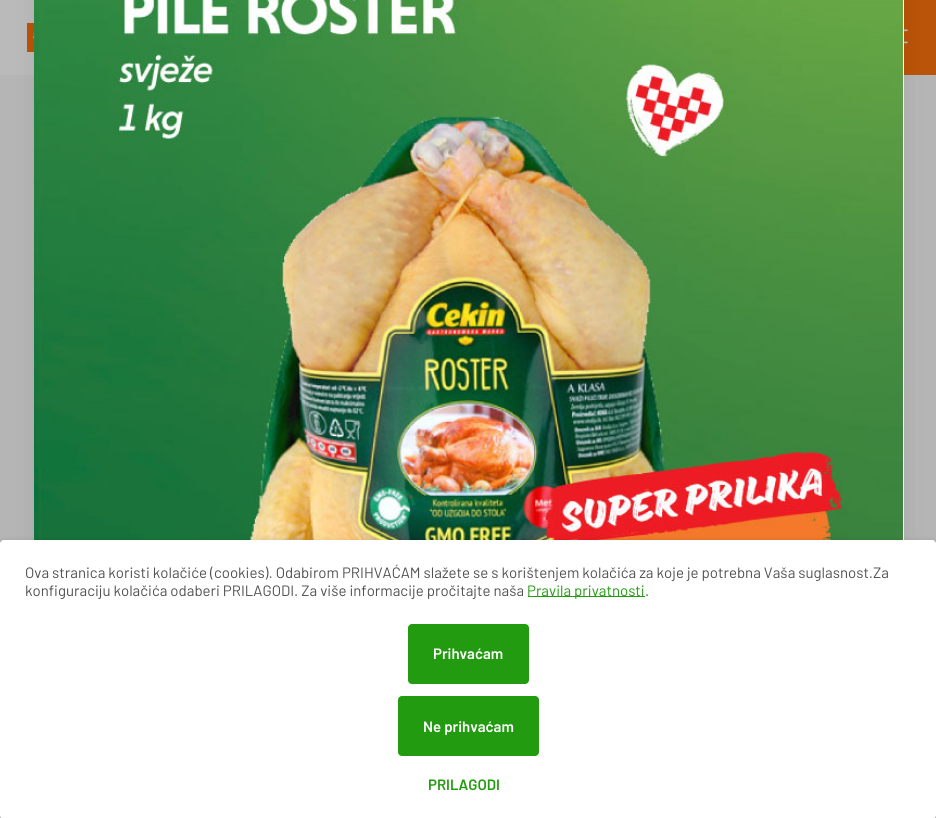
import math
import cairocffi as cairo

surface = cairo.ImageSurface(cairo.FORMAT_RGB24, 936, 818)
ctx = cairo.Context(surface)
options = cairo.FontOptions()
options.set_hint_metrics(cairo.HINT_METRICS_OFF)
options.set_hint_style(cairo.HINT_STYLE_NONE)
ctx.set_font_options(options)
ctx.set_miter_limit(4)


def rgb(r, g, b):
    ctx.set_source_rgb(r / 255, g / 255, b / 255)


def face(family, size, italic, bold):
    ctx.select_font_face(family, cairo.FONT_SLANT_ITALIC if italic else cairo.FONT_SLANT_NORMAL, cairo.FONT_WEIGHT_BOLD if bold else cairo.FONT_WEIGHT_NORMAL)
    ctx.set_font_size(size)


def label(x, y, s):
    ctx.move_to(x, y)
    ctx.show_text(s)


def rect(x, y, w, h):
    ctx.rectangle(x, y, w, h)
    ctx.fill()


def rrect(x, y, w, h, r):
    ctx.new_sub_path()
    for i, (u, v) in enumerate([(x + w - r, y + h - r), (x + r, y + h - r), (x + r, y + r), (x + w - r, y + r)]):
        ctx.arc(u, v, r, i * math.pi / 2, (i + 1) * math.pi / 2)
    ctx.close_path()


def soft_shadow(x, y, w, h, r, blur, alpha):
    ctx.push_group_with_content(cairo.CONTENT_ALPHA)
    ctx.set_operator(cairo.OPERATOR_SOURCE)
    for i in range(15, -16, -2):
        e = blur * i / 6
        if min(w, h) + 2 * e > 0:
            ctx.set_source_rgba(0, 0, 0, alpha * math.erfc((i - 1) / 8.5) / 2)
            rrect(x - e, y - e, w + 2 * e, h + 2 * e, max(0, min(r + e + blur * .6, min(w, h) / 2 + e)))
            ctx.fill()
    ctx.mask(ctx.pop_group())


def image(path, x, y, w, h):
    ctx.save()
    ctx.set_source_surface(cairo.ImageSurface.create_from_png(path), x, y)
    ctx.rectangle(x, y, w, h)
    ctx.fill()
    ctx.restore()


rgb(181, 181, 181)
ctx.paint()
rgb(186, 186, 186)
rect(0, 0, 34, 75)
image('image0.png', 27, 23, 7, 29)
rgb(186, 84, 8)
rect(904, 0, 32, 75)
image('image1.png', 904, 29, 4, 15)
rgb(0, 0, 0)
soft_shadow(35, -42, 869, 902, 4, 12.5, 0.07)
rgb(255, 255, 255)
rect(903, 0, 1, 540)
image('image2.png', 34, 0, 869, 540)
rgb(0, 0, 0)
soft_shadow(0, 540, 936, 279, 4, 3, 0.1)
rgb(255, 255, 255)
rrect(0, 540, 936, 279, 4)
ctx.fill()
face('Barlow', 15, 0, 0)
rgb(81, 81, 81)
label(25, 578, 'Ova stranica koristi kolačiće (cookies). Odabirom PRIHVAĆAM slažete se s korištenjem kolačića za koje je potrebna Vaša suglasnost.Za')
label(25, 596, 'konfiguraciju kolačića odaberi PRILAGODI. Za više informacije pročitajte naša')
rgb(35, 155, 17)
rect(528, 596, 117, 1)
label(527, 596, 'Pravila privatnosti')
rgb(81, 81, 81)
label(645, 596, '.')
rgb(35, 155, 17)
rrect(408, 624, 121, 60, 4)
ctx.fill()
face('Barlow SemiBold', 15, 0, 0)
rgb(255, 255, 255)
label(433, 659, 'Prihvaćam')
rgb(35, 155, 17)
rrect(398, 696, 141, 60, 4)
ctx.fill()
rgb(255, 255, 255)
label(423, 732, 'Ne prihvaćam')
rgb(35, 155, 17)
label(428, 790, 'PRILAGODI')
surface.write_to_png('render.png')
